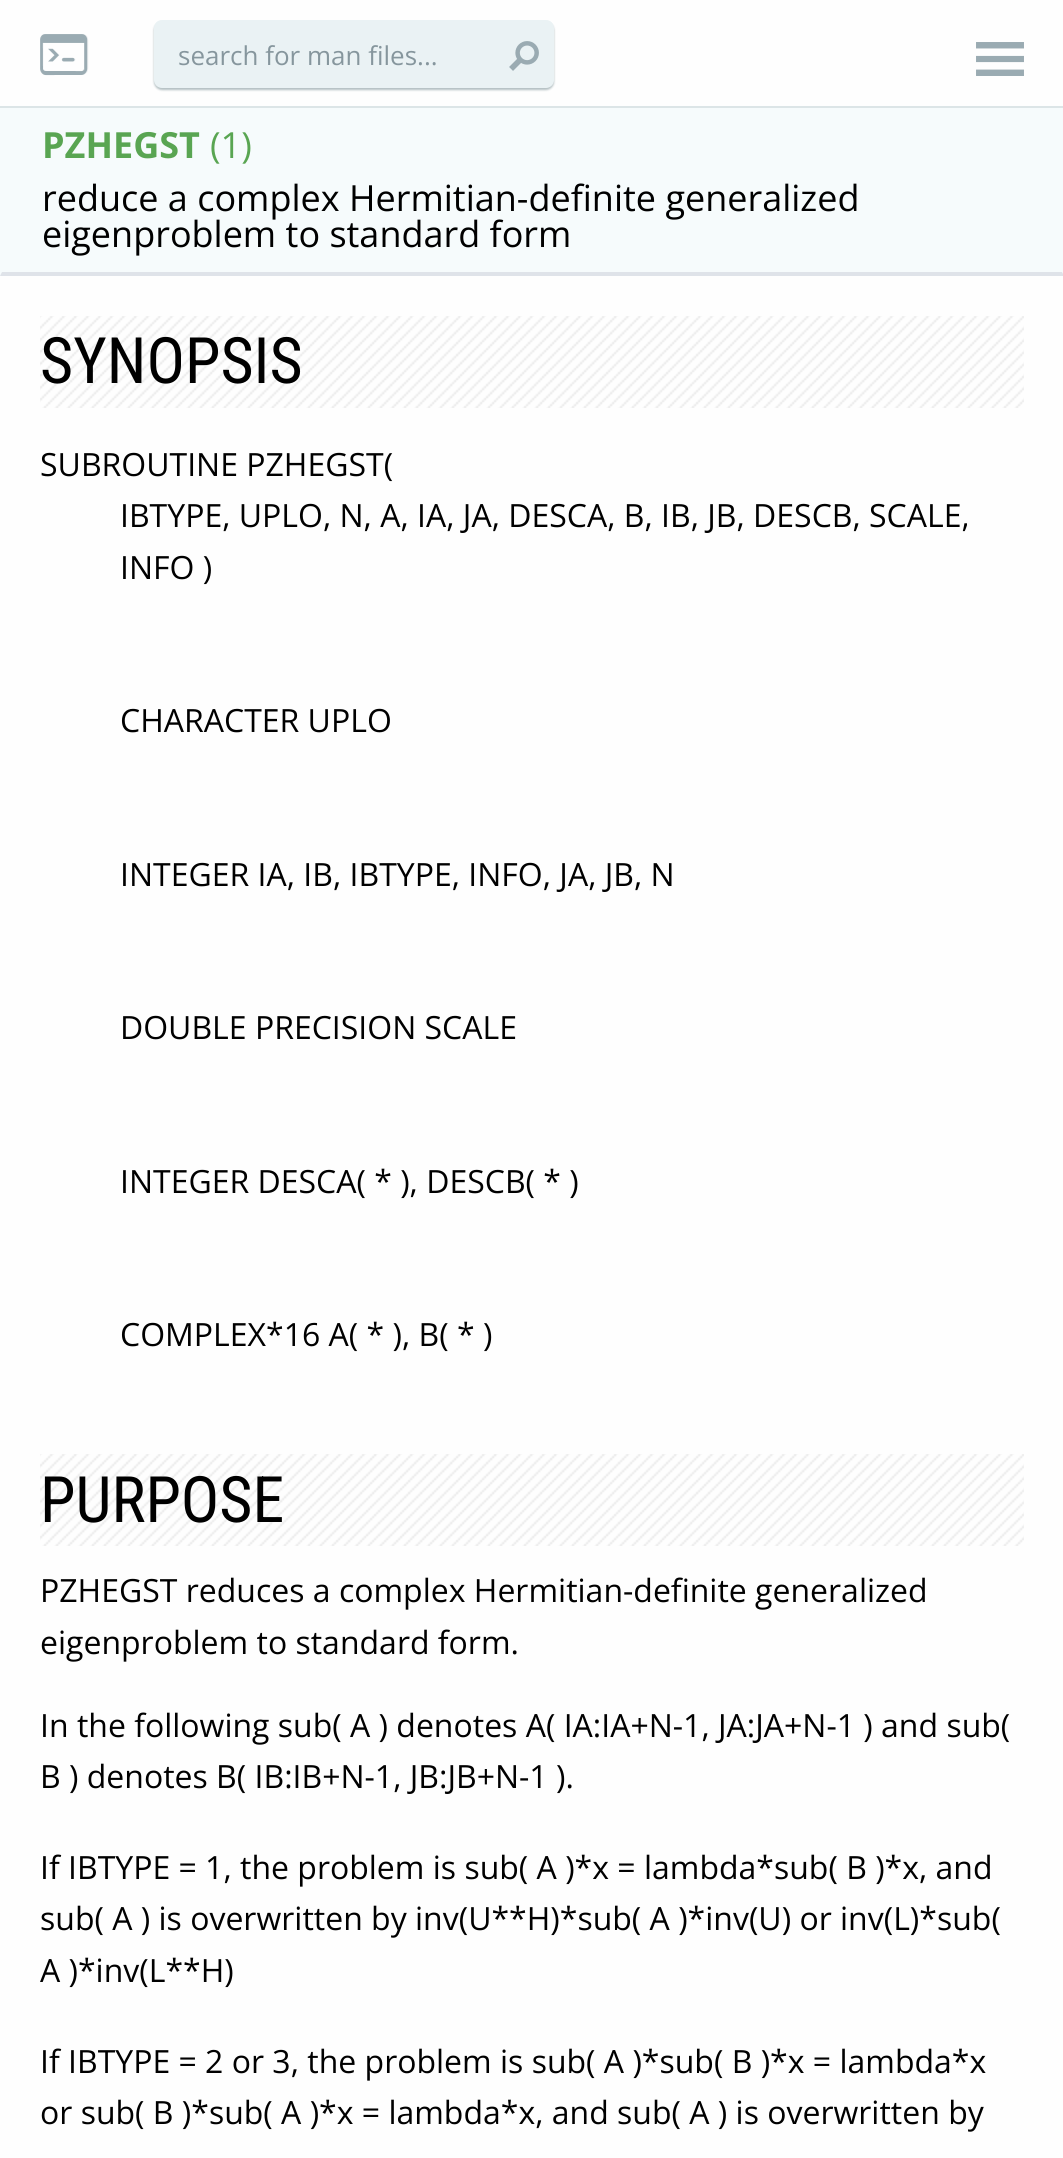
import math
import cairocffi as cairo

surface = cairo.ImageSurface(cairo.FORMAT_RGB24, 1063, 2158)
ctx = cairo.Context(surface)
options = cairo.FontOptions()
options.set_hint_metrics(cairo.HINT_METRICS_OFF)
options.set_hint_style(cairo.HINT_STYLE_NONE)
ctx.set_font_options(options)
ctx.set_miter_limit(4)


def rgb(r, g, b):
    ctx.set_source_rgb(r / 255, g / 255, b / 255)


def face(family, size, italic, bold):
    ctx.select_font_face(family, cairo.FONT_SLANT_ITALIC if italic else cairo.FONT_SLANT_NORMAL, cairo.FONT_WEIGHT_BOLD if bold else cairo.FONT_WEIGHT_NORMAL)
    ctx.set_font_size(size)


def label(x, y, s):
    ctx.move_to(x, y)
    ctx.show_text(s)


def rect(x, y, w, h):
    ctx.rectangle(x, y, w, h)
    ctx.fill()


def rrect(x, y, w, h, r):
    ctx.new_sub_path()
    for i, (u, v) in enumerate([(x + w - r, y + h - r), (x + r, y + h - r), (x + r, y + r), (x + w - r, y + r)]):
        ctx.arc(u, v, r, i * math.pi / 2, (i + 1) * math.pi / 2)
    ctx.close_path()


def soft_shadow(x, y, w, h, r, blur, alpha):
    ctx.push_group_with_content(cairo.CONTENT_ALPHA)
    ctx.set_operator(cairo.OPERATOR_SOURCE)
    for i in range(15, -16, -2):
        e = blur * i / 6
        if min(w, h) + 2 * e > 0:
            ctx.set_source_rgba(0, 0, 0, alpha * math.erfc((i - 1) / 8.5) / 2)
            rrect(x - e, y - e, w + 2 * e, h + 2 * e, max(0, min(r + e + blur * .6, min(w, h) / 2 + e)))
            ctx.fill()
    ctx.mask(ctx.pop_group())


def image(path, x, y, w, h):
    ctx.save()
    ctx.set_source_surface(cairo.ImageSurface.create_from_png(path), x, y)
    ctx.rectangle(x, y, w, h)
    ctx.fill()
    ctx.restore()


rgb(254, 254, 254)
ctx.paint()
rgb(220, 229, 231)
rect(0, 106, 1063, 2)
image('image0.png', 40, 34, 49, 42)
rgb(6, 47, 55)
soft_shadow(154, 22, 400, 68, 8, 1, 0.3)
rgb(234, 242, 244)
rrect(154, 20, 400, 68, 8)
ctx.fill()
face('Open Sans', 26, 0, 0)
rgb(134, 150, 157)
label(178, 65, 'search for man files...')
image('image1.png', 509, 41, 30, 30)
image('image2.png', 976, 42, 48, 34)
rgb(246, 251, 252)
rect(0, 108, 1063, 168)
rgb(223, 227, 233)
ctx.new_path()
ctx.move_to(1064, 276)
ctx.line_to(0, 276)
ctx.line_to(2, 272)
ctx.line_to(1062, 272)
ctx.close_path()
ctx.fill()
face('Open Sans', 36, 0, 1)
rgb(89, 165, 82)
label(42, 158, 'PZHEGST')
face('Open Sans', 36, 0, 0)
label(210, 158, '(1)')
rgb(0, 0, 0)
label(42, 211, 'reduce a complex Hermitian-definite generalized')
label(42, 247, 'eigenproblem to standard form')
image('image3.png', 40, 316, 984, 92)
face('Roboto Condensed', 64, 0, 0)
label(40, 383, 'SYNOPSIS')
face('Open Sans', 32, 0, 0)
label(40, 476, 'SUBROUTINE PZHEGST(')
label(120, 527, 'IBTYPE, UPLO, N, A, IA, JA, DESCA, B, IB, JB, DESCB, SCALE,')
label(120, 579, 'INFO )')
label(120, 732, 'CHARACTER UPLO')
label(120, 886, 'INTEGER IA, IB, IBTYPE, INFO, JA, JB, N')
label(120, 1039, 'DOUBLE PRECISION SCALE')
label(120, 1193, 'INTEGER DESCA( * ), DESCB( * )')
label(120, 1346, 'COMPLEX*16 A( * ), B( * )')
image('image3.png', 40, 1454, 984, 92)
face('Roboto Condensed', 64, 0, 0)
label(40, 1522, 'PURPOSE')
face('Open Sans', 32, 0, 0)
label(40, 1602, 'PZHEGST reduces a complex Hermitian-definite generalized')
label(40, 1654, 'eigenproblem to standard form.')
label(40, 1737, 'In the following sub( A ) denotes A( IA:IA+N-1, JA:JA+N-1 ) and sub(')
label(40, 1788, 'B ) denotes B( IB:IB+N-1, JB:JB+N-1 ).')
label(40, 1879, 'If IBTYPE = 1, the problem is sub( A )*x = lambda*sub( B )*x, and')
label(40, 1930, 'sub( A ) is overwritten by inv(U**H)*sub( A )*inv(U) or inv(L)*sub(')
label(40, 1982, 'A )*inv(L**H)')
label(40, 2073, 'If IBTYPE = 2 or 3, the problem is sub( A )*sub( B )*x = lambda*x')
label(40, 2124, 'or sub( B )*sub( A )*x = lambda*x, and sub( A ) is overwritten by')
surface.write_to_png('render.png')
